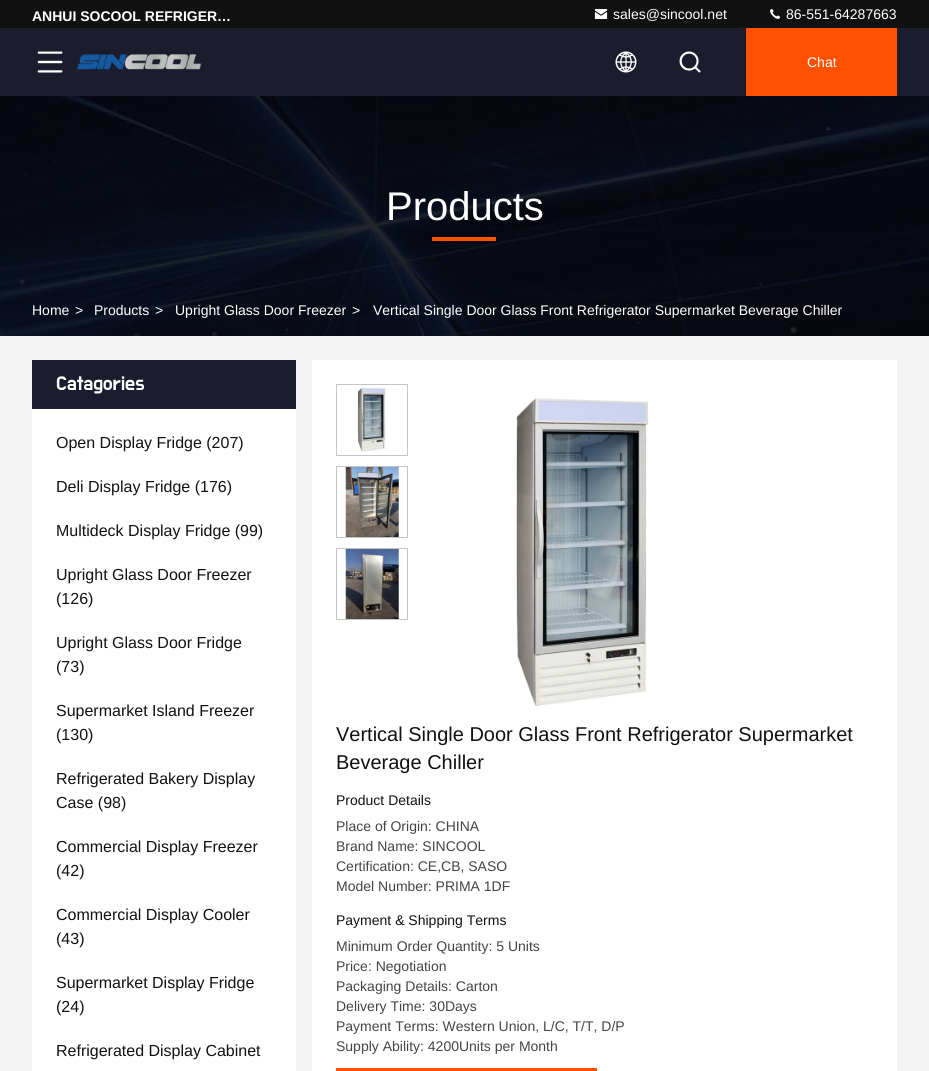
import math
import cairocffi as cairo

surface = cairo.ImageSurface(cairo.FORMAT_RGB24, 929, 1071)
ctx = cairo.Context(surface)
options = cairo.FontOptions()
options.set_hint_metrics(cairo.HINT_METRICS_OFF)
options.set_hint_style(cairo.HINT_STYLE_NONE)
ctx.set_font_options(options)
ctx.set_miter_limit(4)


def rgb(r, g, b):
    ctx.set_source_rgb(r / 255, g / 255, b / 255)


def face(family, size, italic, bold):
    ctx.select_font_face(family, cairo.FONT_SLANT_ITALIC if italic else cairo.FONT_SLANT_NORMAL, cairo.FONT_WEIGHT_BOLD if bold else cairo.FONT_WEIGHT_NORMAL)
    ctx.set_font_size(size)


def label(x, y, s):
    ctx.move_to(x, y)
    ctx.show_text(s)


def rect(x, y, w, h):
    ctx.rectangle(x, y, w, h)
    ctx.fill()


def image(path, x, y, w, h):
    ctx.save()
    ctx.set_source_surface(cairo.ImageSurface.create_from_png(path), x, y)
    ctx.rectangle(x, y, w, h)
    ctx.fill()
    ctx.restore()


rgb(243, 243, 243)
ctx.paint()
rgb(17, 17, 17)
rect(0, 0, 929, 28)
face('Liberation Sans', 14, 0, 1)
rgb(255, 255, 255)
label(32, 21, 'ANHUI SOCOOL REFRIGER…')
image('image0.png', 594, 9, 14, 10)
face('Liberation Sans', 14, 0, 0)
label(613, 19, 'sales@sincool.net')
image('image1.png', 770, 9, 10, 10)
label(786, 19, '86-551-64287663')
rgb(27, 29, 46)
rect(0, 28, 929, 68)
image('image2.png', 37, 51, 26, 22)
image('image3.png', 76, 54, 126, 16)
image('image4.png', 615, 51, 22, 22)
image('image5.png', 679, 51, 22, 22)
rgb(255, 81, 0)
rect(746, 28, 151, 68)
rgb(255, 255, 255)
label(807, 67, 'Chat')
image('image6.png', 0, 96, 929, 240)
face('Liberation Sans', 40, 0, 0)
label(386, 220, 'Products')
rgb(255, 81, 0)
rect(432, 237, 64, 4)
face('Liberation Sans', 14, 0, 0)
rgb(255, 255, 255)
label(32, 315, 'Home')
label(75, 315, '>')
label(94, 315, 'Products')
label(155, 315, '>')
label(175, 315, 'Upright Glass Door Freezer')
label(352, 315, '>')
label(373, 315, 'Vertical Single Door Glass Front Refrigerator Supermarket Beverage Chiller')
rgb(27, 29, 46)
rect(32, 360, 264, 49)
face('Do Hyeon', 20, 0, 0)
rgb(255, 255, 255)
label(56, 390, 'Catagories')
rect(32, 409, 264, 662)
face('Liberation Sans', 16, 0, 0)
rgb(17, 17, 17)
label(56, 448, 'Open Display Fridge (207)')
label(56, 492, 'Deli Display Fridge (176)')
label(56, 536, 'Multideck Display Fridge (99)')
label(56, 580, 'Upright Glass Door Freezer')
label(56, 604, '(126)')
label(56, 648, 'Upright Glass Door Fridge')
label(56, 672, '(73)')
label(56, 716, 'Supermarket Island Freezer')
label(56, 740, '(130)')
label(56, 784, 'Refrigerated Bakery Display')
label(56, 808, 'Case (98)')
label(56, 852, 'Commercial Display Freezer')
label(56, 876, '(42)')
label(56, 920, 'Commercial Display Cooler')
label(56, 944, '(43)')
label(56, 988, 'Supermarket Display Fridge')
label(56, 1012, '(24)')
label(56, 1056, 'Refrigerated Display Cabinet')
rgb(255, 255, 255)
rect(312, 360, 585, 711)
ctx.rectangle(336.5, 384.5, 71, 71)
rgb(196, 196, 196)
ctx.set_line_width(1)
ctx.stroke()
image('image7.png', 357, 387, 29, 65)
ctx.rectangle(336.5, 466.5, 71, 71)
ctx.stroke()
image('image8.png', 345, 467, 54, 70)
ctx.rectangle(336.5, 548.5, 71, 71)
ctx.stroke()
image('image9.png', 345, 549, 54, 70)
image('image10.png', 515, 398, 134, 308)
face('Liberation Sans', 20, 0, 0)
rgb(17, 17, 17)
label(336, 741, 'Vertical Single Door Glass Front Refrigerator Supermarket')
label(336, 769, 'Beverage Chiller')
face('Liberation Sans', 14, 0, 0)
label(336, 805, 'Product Details')
rgb(68, 68, 68)
label(336, 831, 'Place of Origin: CHINA')
label(336, 851, 'Brand Name: SINCOOL')
label(336, 871, 'Certification: CE,CB, SASO')
label(336, 891, 'Model Number: PRIMA 1DF')
rgb(17, 17, 17)
label(336, 925, 'Payment & Shipping Terms')
rgb(68, 68, 68)
label(336, 951, 'Minimum Order Quantity: 5 Units')
label(336, 971, 'Price: Negotiation')
label(336, 991, 'Packaging Details: Carton')
label(336, 1011, 'Delivery Time: 30Days')
label(336, 1031, 'Payment Terms: Western Union, L/C, T/T, D/P')
label(336, 1051, 'Supply Ability: 4200Units per Month')
rgb(255, 81, 0)
rect(336, 1068, 261, 3)
surface.write_to_png('render.png')
